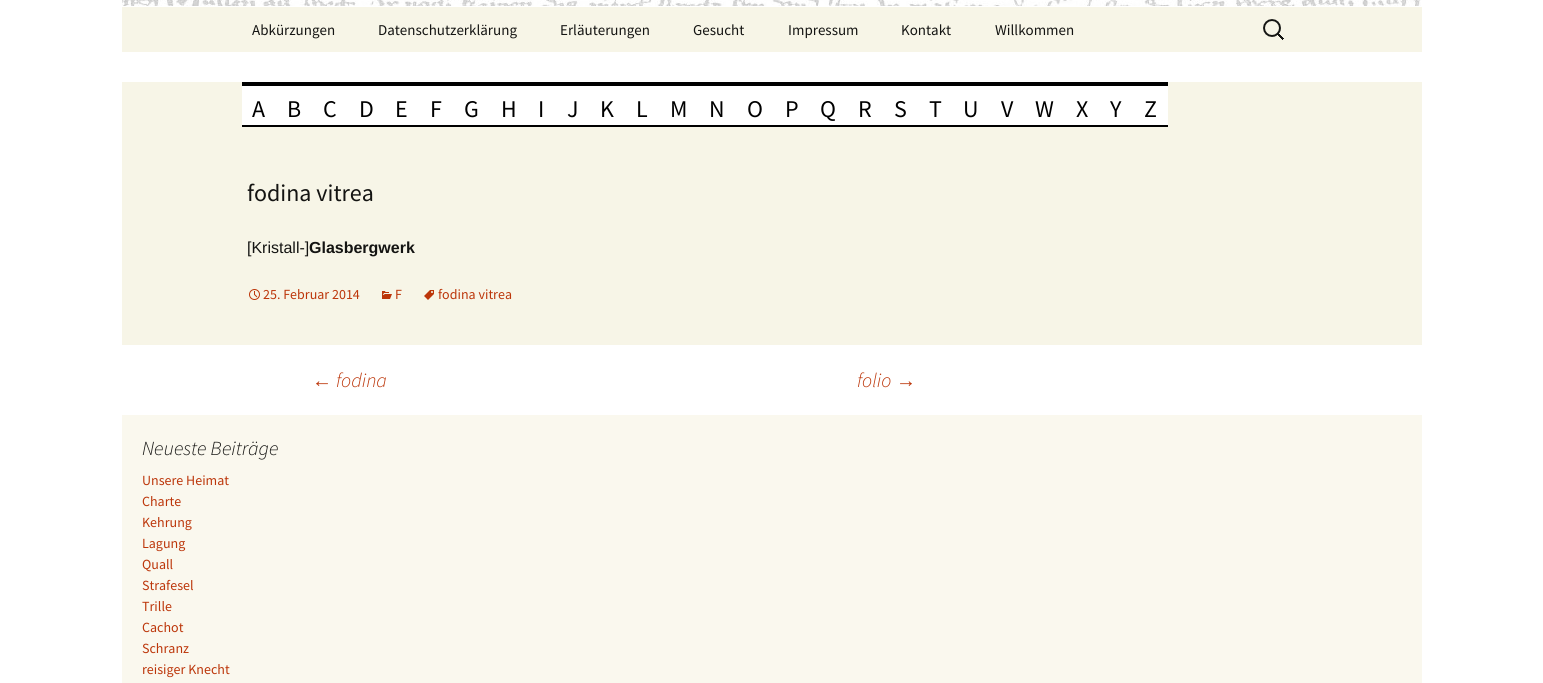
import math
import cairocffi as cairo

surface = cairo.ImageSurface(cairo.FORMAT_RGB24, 1543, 683)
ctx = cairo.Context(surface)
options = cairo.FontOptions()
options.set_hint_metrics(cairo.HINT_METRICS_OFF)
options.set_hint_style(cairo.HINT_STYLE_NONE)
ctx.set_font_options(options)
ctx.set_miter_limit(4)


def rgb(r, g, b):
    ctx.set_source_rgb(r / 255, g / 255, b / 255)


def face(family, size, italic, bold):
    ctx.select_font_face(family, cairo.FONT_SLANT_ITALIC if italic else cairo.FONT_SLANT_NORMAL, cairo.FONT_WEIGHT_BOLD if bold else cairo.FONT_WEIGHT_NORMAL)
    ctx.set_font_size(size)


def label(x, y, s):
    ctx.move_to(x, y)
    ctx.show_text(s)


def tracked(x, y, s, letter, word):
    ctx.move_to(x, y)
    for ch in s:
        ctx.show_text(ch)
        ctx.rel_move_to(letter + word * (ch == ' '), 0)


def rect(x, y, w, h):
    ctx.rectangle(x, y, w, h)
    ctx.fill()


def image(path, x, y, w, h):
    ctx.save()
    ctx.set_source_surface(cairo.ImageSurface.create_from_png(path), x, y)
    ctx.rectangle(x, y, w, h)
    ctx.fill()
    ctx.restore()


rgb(255, 255, 255)
ctx.paint()
image('image0.png', 122, 0, 1299, 6)
rgb(247, 245, 231)
rect(122, 7, 1300, 45)
face('Source Sans Pro', 15, 0, 0)
rgb(20, 20, 18)
label(252, 35, 'Abkürzungen')
label(378, 35, 'Datenschutzerklärung')
label(560, 35, 'Erläuterungen')
label(693, 35, 'Gesucht')
label(788, 35, 'Impressum')
label(901, 35, 'Kontakt')
label(995, 35, 'Willkommen')
image('image1.png', 1263, 19, 21, 21)
rgb(247, 245, 231)
rect(122, 82, 1300, 263)
rgb(255, 255, 255)
rect(242, 86, 926, 39)
rgb(0, 0, 0)
rect(242, 82, 926, 4)
rect(242, 125, 926, 2)
face('Source Sans Pro', 24, 0, 0)
tracked(252, 117, 'A', 1, 0)
tracked(287, 117, 'B', 1, 0)
tracked(323, 117, 'C', 1, 0)
tracked(359, 117, 'D', 1, 0)
tracked(395, 117, 'E', 1, 0)
tracked(430, 117, 'F', 1, 0)
tracked(464, 117, 'G', 1, 0)
tracked(501, 117, 'H', 1, 0)
tracked(538, 117, 'I', 1, 0)
tracked(567, 117, 'J', 1, 0)
tracked(600, 117, 'K', 1, 0)
tracked(636, 117, 'L', 1, 0)
tracked(670, 117, 'M', 1, 0)
tracked(709, 117, 'N', 1, 0)
tracked(747, 117, 'O', 1, 0)
tracked(785, 117, 'P', 1, 0)
tracked(820, 117, 'Q', 1, 0)
tracked(858, 117, 'R', 1, 0)
tracked(894, 117, 'S', 1, 0)
tracked(929, 117, 'T', 1, 0)
tracked(963, 117, 'U', 1, 0)
tracked(1001, 117, 'V', 1, 0)
tracked(1035, 117, 'W', 1, 0)
tracked(1076, 117, 'X', 1, 0)
tracked(1110, 117, 'Y', 1, 0)
tracked(1144, 117, 'Z', 1, 0)
rgb(20, 20, 18)
label(247, 201, 'fodina vitrea')
face('Liberation Sans', 16, 0, 0)
label(247, 253, '[Kristall-]')
face('Liberation Sans', 16, 0, 1)
label(309, 253, 'Glasbergwerk')
image('image2.png', 249, 289, 11, 11)
face('Source Sans Pro', 14, 0, 0)
rgb(188, 54, 10)
label(263, 299, '25. Februar 2014')
image('image3.png', 382, 291, 10, 8)
label(395, 299, 'F')
image('image4.png', 424, 290, 10, 10)
label(438, 299, 'fodina vitrea')
face('Liberation Sans', 20, 1, 0)
label(312, 387, '←')
face('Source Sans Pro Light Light', 20, 1, 0)
label(336, 387, 'fodina')
label(857, 387, 'folio')
face('Liberation Sans', 20, 1, 0)
label(896, 387, '→')
rgb(250, 248, 238)
rect(122, 415, 1300, 268)
face('Source Sans Pro Light Light', 20, 1, 0)
rgb(20, 20, 18)
label(142, 455, 'Neueste Beiträge')
face('Source Sans Pro', 14, 0, 0)
rgb(188, 54, 10)
label(142, 485, 'Unsere Heimat')
label(142, 506, 'Charte')
label(142, 527, 'Kehrung')
label(142, 548, 'Lagung')
label(142, 569, 'Quall')
label(142, 590, 'Strafesel')
label(142, 611, 'Trille')
label(142, 632, 'Cachot')
label(142, 653, 'Schranz')
label(142, 674, 'reisiger Knecht')
surface.write_to_png('render.png')
